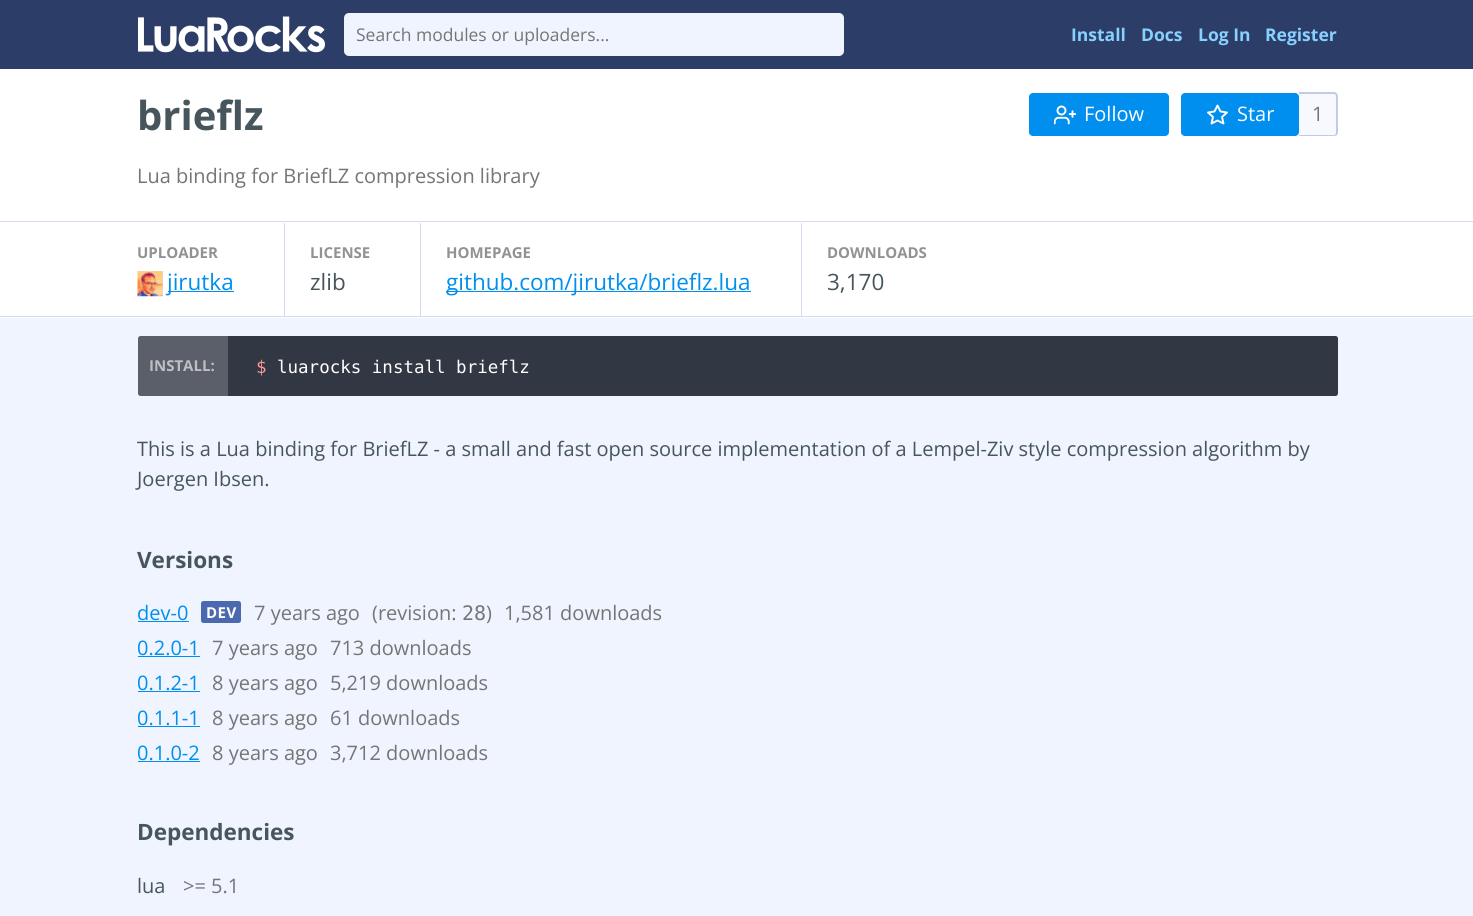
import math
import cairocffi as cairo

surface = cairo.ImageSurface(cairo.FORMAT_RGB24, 1473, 916)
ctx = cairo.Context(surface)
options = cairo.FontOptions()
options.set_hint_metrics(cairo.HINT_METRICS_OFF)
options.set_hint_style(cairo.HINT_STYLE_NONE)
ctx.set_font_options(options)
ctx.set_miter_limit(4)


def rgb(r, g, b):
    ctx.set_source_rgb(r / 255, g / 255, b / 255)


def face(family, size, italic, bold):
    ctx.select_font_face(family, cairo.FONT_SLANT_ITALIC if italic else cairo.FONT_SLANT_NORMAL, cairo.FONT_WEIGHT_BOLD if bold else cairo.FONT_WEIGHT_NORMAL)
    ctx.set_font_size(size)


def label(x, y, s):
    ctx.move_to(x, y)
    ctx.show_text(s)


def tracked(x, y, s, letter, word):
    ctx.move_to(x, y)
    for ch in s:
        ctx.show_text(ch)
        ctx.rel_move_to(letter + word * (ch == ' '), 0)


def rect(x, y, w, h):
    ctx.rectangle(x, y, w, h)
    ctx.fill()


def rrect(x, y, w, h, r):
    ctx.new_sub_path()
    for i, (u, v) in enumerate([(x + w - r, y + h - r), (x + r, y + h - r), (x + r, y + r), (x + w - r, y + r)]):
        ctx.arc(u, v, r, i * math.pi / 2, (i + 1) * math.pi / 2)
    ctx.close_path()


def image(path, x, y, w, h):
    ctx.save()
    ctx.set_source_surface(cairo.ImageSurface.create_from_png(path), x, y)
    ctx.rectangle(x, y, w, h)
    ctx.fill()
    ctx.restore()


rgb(239, 244, 255)
ctx.paint()
rgb(44, 62, 103)
rect(0, 0, 1473, 69)
image('image0.png', 138, 16, 187, 37)
rgb(239, 244, 255)
rrect(344, 13, 500, 43, 5)
ctx.fill()
face('Open Sans', 17.5, 0, 0)
rgb(117, 117, 117)
label(356, 41, 'Search modules or uploaders...')
face('Open Sans', 17.5, 0, 1)
rgb(136, 208, 255)
label(1071, 41, 'Install')
label(1141, 41, 'Docs')
label(1198, 41, 'Log In')
label(1265, 41, 'Register')
rgb(255, 255, 255)
rect(0, 69, 1473, 249)
rgb(211, 219, 236)
rect(0, 316, 1473, 1)
face('Open Sans', 40, 0, 1)
rgb(71, 85, 92)
label(137, 130, 'brieflz')
rgb(0, 143, 238)
rrect(1029, 93, 140, 43, 4)
ctx.fill()
image('image1.png', 1054, 105, 22, 20)
face('Open Sans', 20, 0, 0)
rgb(255, 255, 255)
label(1084, 121, 'Follow')
rgb(0, 143, 238)
rrect(1181, 93, 118, 43, 4)
ctx.fill()
ctx.new_path()
ctx.move_to(1217.5, 105.5)
ctx.line_to(1220.5, 111.5)
ctx.line_to(1227, 112.5)
ctx.line_to(1222, 117)
ctx.line_to(1223.5, 123.5)
ctx.line_to(1217.5, 120.5)
ctx.line_to(1211.5, 123.5)
ctx.line_to(1213, 117)
ctx.line_to(1208, 112.5)
ctx.line_to(1214.5, 111.5)
ctx.close_path()
rgb(255, 255, 255)
ctx.set_line_width(1.9)
ctx.set_line_cap(cairo.LINE_CAP_ROUND)
ctx.set_line_join(cairo.LINE_JOIN_ROUND)
ctx.stroke()
label(1237, 121, 'Star')
rgb(247, 249, 255)
ctx.new_path()
ctx.move_to(1299, 93)
ctx.line_to(1334, 93)
ctx.curve_to(1336, 93, 1338, 95, 1338, 97)
ctx.line_to(1338, 132)
ctx.curve_to(1338, 134, 1336, 136, 1334, 136)
ctx.line_to(1299, 136)
ctx.close_path()
ctx.fill()
rgb(193, 204, 228)
ctx.set_fill_rule(cairo.FILL_RULE_EVEN_ODD)
ctx.new_path()
ctx.move_to(1299, 92)
ctx.line_to(1334, 92)
ctx.curve_to(1336, 92, 1338, 94, 1338, 96)
ctx.line_to(1338, 132)
ctx.curve_to(1338, 135, 1336, 136, 1334, 136)
ctx.line_to(1299, 136)
ctx.close_path()
ctx.move_to(1299, 94)
ctx.line_to(1334, 94)
ctx.curve_to(1335, 94, 1336, 95, 1336, 96)
ctx.line_to(1336, 132)
ctx.curve_to(1336, 134, 1335, 135, 1334, 135)
ctx.line_to(1299, 135)
ctx.close_path()
ctx.fill()
rgb(117, 117, 117)
label(1312, 121, '1')
label(137, 183, 'Lua binding for BriefLZ compression library')
rgb(211, 219, 236)
rect(0, 221, 1473, 1)
face('Open Sans', 15, 0, 1)
rgb(145, 146, 148)
label(137, 258, 'UPLOADER')
rgb(217, 217, 217)
rect(138, 271, 25, 25)
image('image2.png', 137, 271, 26, 26)
rgb(0, 143, 238)
rect(168, 291, 66, 1)
face('Open Sans', 22.5, 0, 0)
label(167, 290, 'jirutka')
rgb(211, 219, 236)
rect(284, 223, 1, 93)
face('Open Sans', 15, 0, 1)
rgb(145, 146, 148)
label(310, 258, 'LICENSE')
face('Open Sans', 22.5, 0, 0)
rgb(71, 85, 92)
label(310, 290, 'zlib')
rgb(211, 219, 236)
rect(420, 223, 1, 93)
face('Open Sans', 15, 0, 1)
rgb(145, 146, 148)
label(446, 258, 'HOMEPAGE')
rgb(0, 143, 238)
rect(446, 291, 305, 1)
face('Open Sans', 22.5, 0, 0)
label(446, 290, 'github.com/jirutka/brieflz.lua')
rgb(211, 219, 236)
rect(801, 223, 1, 93)
face('Open Sans', 15, 0, 1)
rgb(145, 146, 148)
label(827, 258, 'DOWNLOADS')
face('Open Sans', 22.5, 0, 0)
rgb(71, 85, 92)
label(827, 290, '3,170')
rgb(50, 55, 68)
rrect(138, 336, 1200, 60, 2.5)
ctx.fill()
ctx.set_source_rgba(1, 1, 1, 0.2)
rect(138, 336, 90, 60)
face('Open Sans', 15, 0, 1)
rgb(189, 191, 195)
label(149, 371, 'INSTALL:')
face('DejaVu Sans Mono', 17.5, 0, 0)
rgb(255, 152, 152)
label(256, 373, '$')
rgb(255, 255, 255)
label(277, 373, 'luarocks install brieflz')
face('Open Sans', 20, 0, 0)
rgb(71, 85, 92)
label(137, 456, 'This is a Lua binding for BriefLZ - a small and fast open source implementation of a Lempel-Ziv style compression algorithm by')
label(137, 486, 'Joergen Ibsen.')
face('Open Sans', 22.5, 0, 1)
label(137, 568, 'Versions')
face('Open Sans', 20, 0, 0)
rgb(0, 143, 238)
label(137, 620, 'dev-0')
rect(138, 621, 51, 1)
rgb(75, 105, 175)
rrect(201, 601, 40, 22, 2.5)
ctx.fill()
face('Open Sans', 15, 0, 1)
rgb(255, 255, 255)
tracked(206, 618, 'DEV', 0.5, 0)
face('Open Sans', 20, 0, 0)
rgb(117, 117, 117)
label(254, 620, '7 years ago')
label(372, 620, '(revision:')
face('DejaVu Sans Mono', 20, 0, 0)
label(462, 620, '28')
face('Open Sans', 20, 0, 0)
label(486, 620, ')')
label(504, 620, '1,581 downloads')
rgb(0, 143, 238)
label(137, 655, '0.2.0-1')
rect(138, 656, 62, 1)
rgb(117, 117, 117)
label(212, 655, '7 years ago')
label(330, 655, '713 downloads')
rgb(0, 143, 238)
label(137, 690, '0.1.2-1')
rect(138, 691, 62, 1)
rgb(117, 117, 117)
label(212, 690, '8 years ago')
label(330, 690, '5,219 downloads')
rgb(0, 143, 238)
label(137, 725, '0.1.1-1')
rect(138, 726, 62, 1)
rgb(117, 117, 117)
label(212, 725, '8 years ago')
label(330, 725, '61 downloads')
rgb(0, 143, 238)
label(137, 760, '0.1.0-2')
rect(138, 761, 62, 1)
rgb(117, 117, 117)
label(212, 760, '8 years ago')
label(330, 760, '3,712 downloads')
face('Open Sans', 22.5, 0, 1)
rgb(71, 85, 92)
label(137, 840, 'Dependencies')
face('Open Sans', 20, 0, 0)
label(137, 893, 'lua')
rgb(117, 117, 117)
label(183, 893, '>= 5.1')
surface.write_to_png('render.png')
